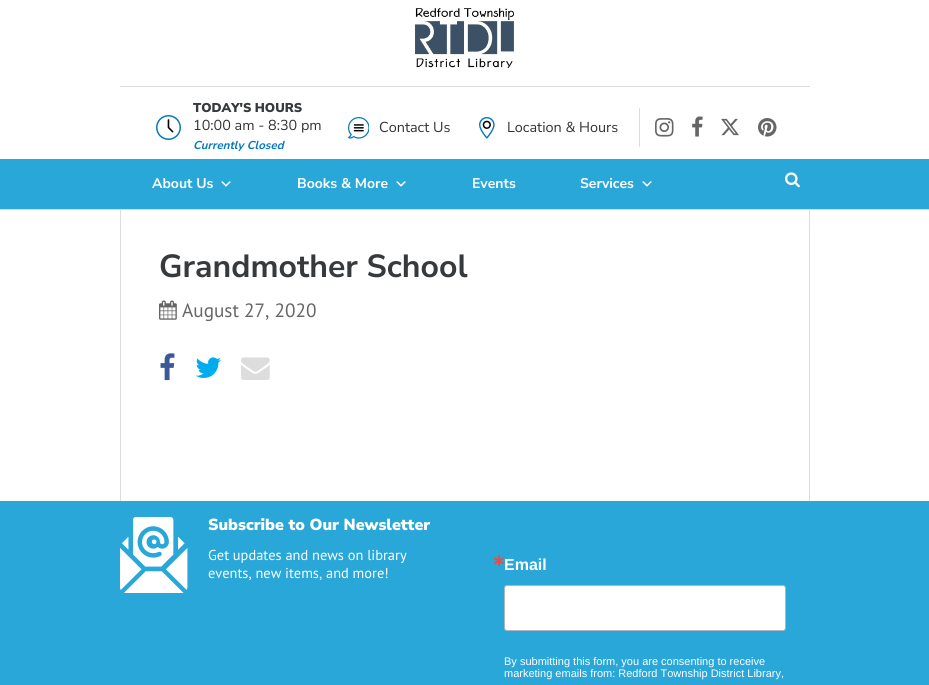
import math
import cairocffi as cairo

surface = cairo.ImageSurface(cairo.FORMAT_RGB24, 929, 685)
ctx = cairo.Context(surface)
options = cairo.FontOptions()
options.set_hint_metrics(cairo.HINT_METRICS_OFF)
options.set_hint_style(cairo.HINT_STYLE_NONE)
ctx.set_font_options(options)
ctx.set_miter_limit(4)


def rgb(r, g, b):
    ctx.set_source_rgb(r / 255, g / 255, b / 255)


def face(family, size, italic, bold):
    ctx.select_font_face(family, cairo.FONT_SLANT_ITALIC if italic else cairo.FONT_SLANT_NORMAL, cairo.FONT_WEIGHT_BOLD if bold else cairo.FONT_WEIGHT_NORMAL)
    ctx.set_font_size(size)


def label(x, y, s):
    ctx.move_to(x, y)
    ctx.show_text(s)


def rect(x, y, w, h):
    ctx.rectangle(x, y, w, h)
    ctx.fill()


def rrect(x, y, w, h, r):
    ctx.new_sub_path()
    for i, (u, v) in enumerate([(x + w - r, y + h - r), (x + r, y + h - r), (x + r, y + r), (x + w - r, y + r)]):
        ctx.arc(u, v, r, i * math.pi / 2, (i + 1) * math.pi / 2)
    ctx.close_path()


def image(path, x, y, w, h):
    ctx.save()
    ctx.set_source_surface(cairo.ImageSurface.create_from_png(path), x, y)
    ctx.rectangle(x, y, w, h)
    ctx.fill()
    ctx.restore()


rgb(255, 255, 255)
ctx.paint()
rgb(221, 221, 221)
rect(0, 209, 929, 1)
rect(120, 86, 690, 1)
image('image0.png', 415, 8, 99, 60)
face('Nunito Sans Black', 12.75, 0, 0)
rgb(55, 58, 60)
label(193, 112, 'TODAY\'S HOURS')
image('image1.png', 156, 115, 25, 25)
face('Nunito Sans', 14.4, 0, 0)
rgb(51, 51, 51)
label(193, 130, '10:00 am - 8:30 pm')
face('Nunito Sans', 11.5, 1, 1)
rgb(4, 119, 191)
label(193, 149, 'Currently Closed')
image('image2.png', 348, 117, 21, 22)
face('Nunito Sans', 14.4, 0, 0)
rgb(51, 51, 51)
label(379, 132, 'Contact Us')
image('image3.png', 479, 117, 16, 22)
label(507, 132, 'Location & Hours')
rgb(221, 221, 221)
rect(639, 108, 1, 39)
image('image4.png', 655, 118, 19, 19)
image('image5.png', 692, 116, 11, 21)
image('image6.png', 721, 118, 18, 18)
image('image7.png', 758, 118, 19, 19)
rgb(41, 167, 217)
rect(0, 159, 929, 50)
face('Nunito Sans', 14, 0, 1)
rgb(255, 255, 255)
label(152, 188, 'About Us')
image('image8.png', 221, 181, 10, 6)
label(297, 188, 'Books & More')
image('image8.png', 396, 181, 10, 6)
label(472, 188, 'Events')
label(580, 188, 'Services')
image('image8.png', 642, 181, 10, 6)
image('image9.png', 785, 172, 15, 16)
rgb(221, 221, 221)
rect(809, 210, 1, 291)
rect(120, 210, 1, 291)
face('Nunito Sans', 32, 0, 1)
rgb(55, 58, 60)
label(159, 277, 'Grandmother School')
image('image10.png', 159, 300, 18, 20)
face('PT Sans', 19.25, 0, 0)
rgb(102, 102, 102)
label(182, 317, 'August 27, 2020')
image('image11.png', 160, 353, 15, 28)
image('image12.png', 195, 357, 26, 21)
image('image13.png', 241, 357, 29, 23)
rgb(41, 167, 217)
rect(0, 501, 929, 184)
image('image14.png', 120, 517, 68, 76)
face('Nunito Sans Black', 16, 0, 0)
rgb(255, 255, 255)
label(208, 530, 'Subscribe to Our Newsletter')
face('PT Sans', 14.4, 0, 0)
label(208, 560, 'Get updates and news on library')
label(208, 578, 'events, new items, and more!')
face('DejaVu Sans', 16, 0, 1)
rgb(245, 70, 59)
label(492, 566, '∗')
face('Liberation Sans', 16, 0, 1)
rgb(255, 255, 255)
label(504, 570, 'Email')
rrect(504.5, 585.5, 281, 45, 2.5)
ctx.fill_preserve()
rgb(176, 182, 187)
ctx.set_line_width(1)
ctx.stroke()
face('Liberation Sans', 11, 0, 0)
rgb(255, 255, 255)
label(504, 665, 'By submitting this form, you are consenting to receive')
label(504, 677, 'marketing emails from: Redford Township District Library,')
surface.write_to_png('render.png')
